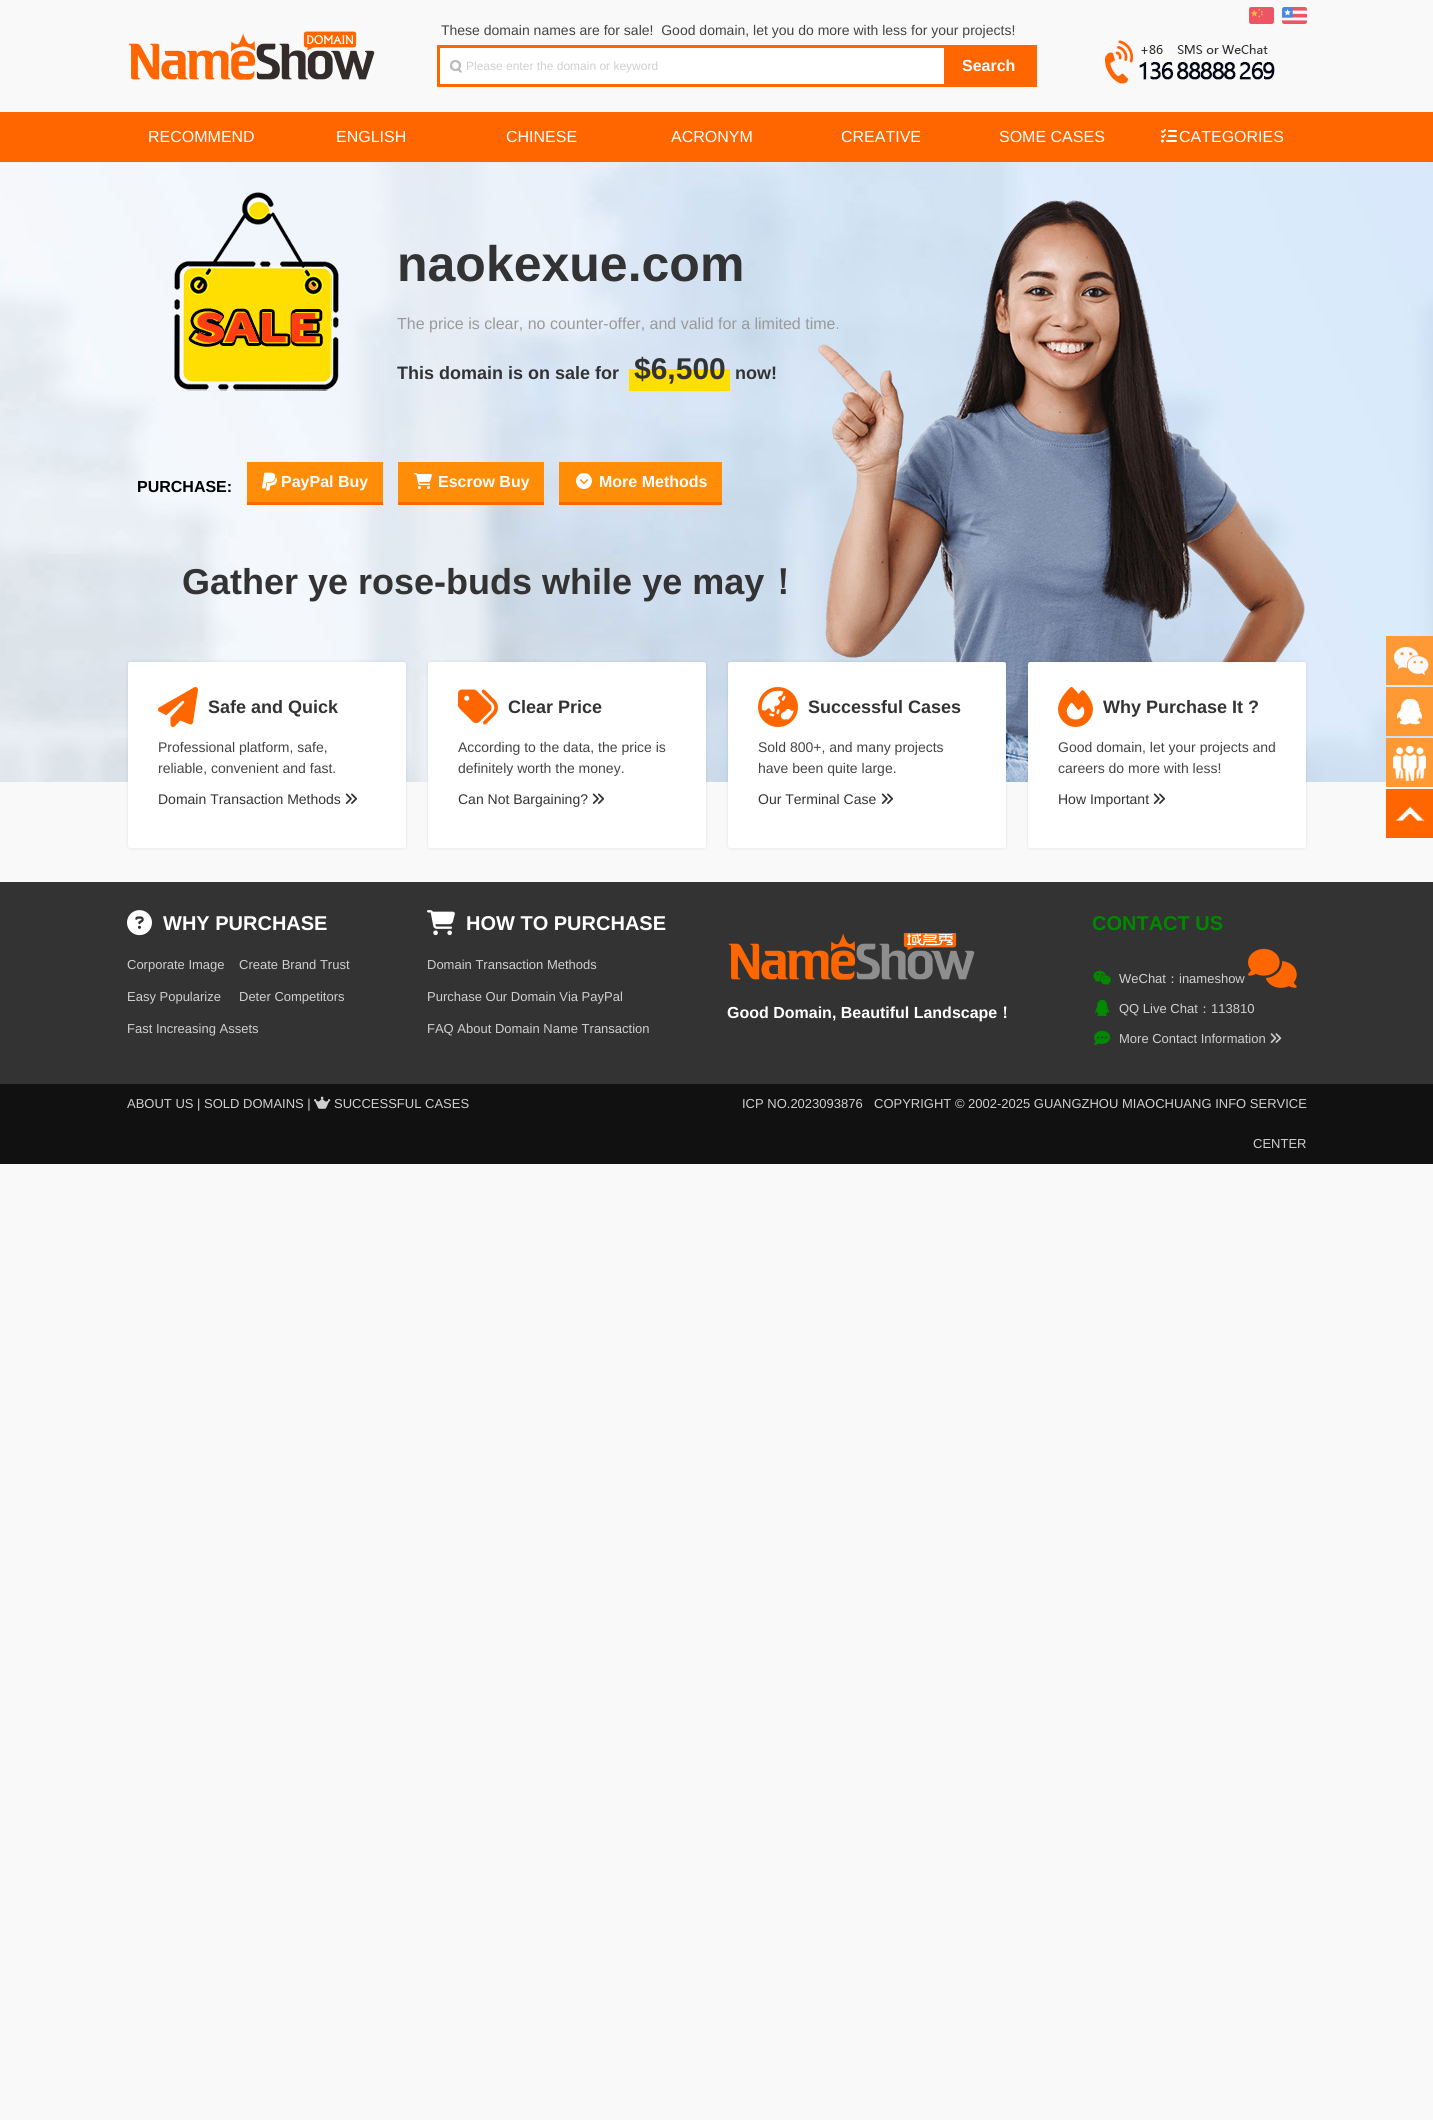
import math
import cairocffi as cairo

surface = cairo.ImageSurface(cairo.FORMAT_RGB24, 1433, 2120)
ctx = cairo.Context(surface)
options = cairo.FontOptions()
options.set_hint_metrics(cairo.HINT_METRICS_OFF)
options.set_hint_style(cairo.HINT_STYLE_NONE)
ctx.set_font_options(options)
ctx.set_miter_limit(4)


def rgb(r, g, b):
    ctx.set_source_rgb(r / 255, g / 255, b / 255)


def face(family, size, italic, bold):
    ctx.select_font_face(family, cairo.FONT_SLANT_ITALIC if italic else cairo.FONT_SLANT_NORMAL, cairo.FONT_WEIGHT_BOLD if bold else cairo.FONT_WEIGHT_NORMAL)
    ctx.set_font_size(size)


def label(x, y, s):
    ctx.move_to(x, y)
    ctx.show_text(s)


def rect(x, y, w, h):
    ctx.rectangle(x, y, w, h)
    ctx.fill()


def rrect(x, y, w, h, r):
    ctx.new_sub_path()
    for i, (u, v) in enumerate([(x + w - r, y + h - r), (x + r, y + h - r), (x + r, y + r), (x + w - r, y + r)]):
        ctx.arc(u, v, r, i * math.pi / 2, (i + 1) * math.pi / 2)
    ctx.close_path()


def soft_shadow(x, y, w, h, r, blur, alpha):
    ctx.push_group_with_content(cairo.CONTENT_ALPHA)
    ctx.set_operator(cairo.OPERATOR_SOURCE)
    for i in range(15, -16, -2):
        e = blur * i / 6
        if min(w, h) + 2 * e > 0:
            ctx.set_source_rgba(0, 0, 0, alpha * math.erfc((i - 1) / 8.5) / 2)
            rrect(x - e, y - e, w + 2 * e, h + 2 * e, max(0, min(r + e + blur * .6, min(w, h) / 2 + e)))
            ctx.fill()
    ctx.mask(ctx.pop_group())


def image(path, x, y, w, h):
    ctx.save()
    ctx.set_source_surface(cairo.ImageSurface.create_from_png(path), x, y)
    ctx.rectangle(x, y, w, h)
    ctx.fill()
    ctx.restore()


rgb(249, 249, 249)
ctx.paint()
image('image0.png', 128, 31, 247, 49)
face('Liberation Sans', 14, 0, 0)
rgb(68, 68, 68)
label(441, 35, 'These domain names are for sale!  Good domain, let you do more with less for your projects!')
rgb(255, 102, 0)
rect(437, 45, 600, 42)
rgb(255, 255, 255)
rect(440, 48, 504, 36)
image('image1.png', 450, 60, 12, 13)
face('Liberation Sans', 12, 0, 0)
rgb(207, 207, 207)
label(466, 70, 'Please enter the domain or keyword')
face('Liberation Sans', 16, 0, 1)
rgb(255, 255, 255)
label(962, 71, 'Search')
image('image2.png', 1249, 7, 25, 17)
image('image3.png', 1282, 7, 25, 17)
image('image4.png', 1105, 40, 170, 44)
rgb(255, 102, 0)
rect(0, 112, 1433, 50)
face('Liberation Sans', 16, 0, 0)
rgb(255, 255, 255)
label(148, 142, 'RECOMMEND')
label(336, 142, 'ENGLISH')
label(506, 142, 'CHINESE')
label(671, 142, 'ACRONYM')
label(841, 142, 'CREATIVE')
label(999, 142, 'SOME CASES')
image('image5.png', 1161, 129, 16, 14)
label(1179, 142, 'CATEGORIES')
image('image6.png', 0, 162, 1433, 620)
image('image7.png', 818, 200, 487, 582)
image('image8.png', 174, 192, 165, 199)
face('Liberation Sans', 50, 0, 1)
rgb(51, 51, 51)
label(397, 281, 'naokexue.com')
face('Liberation Sans', 16, 0, 0)
rgb(153, 153, 153)
label(397, 329, 'The price is clear, no counter-offer, and valid for a limited time.')
ctx.save()
ctx.rectangle(397, 162, 900, 250)
ctx.clip()
face('Liberation Sans', 18, 0, 1)
rgb(51, 51, 51)
label(397, 379, 'This domain is on sale for')
ctx.restore()
rgb(255, 222, 1)
rect(629, 369, 101, 22)
face('Liberation Sans', 30, 0, 1)
rgb(51, 51, 51)
label(634, 379, '$6,500')
face('Liberation Sans', 18, 0, 1)
label(735, 379, 'now!')
face('Liberation Sans', 16, 0, 1)
rgb(0, 0, 0)
label(137, 492, 'PURCHASE:')
rgb(255, 141, 8)
rect(247, 462, 136, 40)
rgb(255, 102, 0)
rect(247, 502, 136, 3)
image('image9.png', 262, 472, 15, 19)
rgb(255, 255, 255)
label(281, 487, 'PayPal Buy')
rgb(255, 141, 8)
rect(398, 462, 146, 40)
rgb(255, 102, 0)
rect(398, 502, 146, 3)
image('image10.png', 414, 473, 18, 16)
rgb(255, 255, 255)
label(438, 487, 'Escrow Buy')
rgb(255, 141, 8)
rect(559, 462, 163, 40)
rgb(255, 102, 0)
rect(559, 502, 163, 3)
image('image11.png', 576, 473, 16, 16)
rgb(255, 255, 255)
label(599, 487, 'More Methods')
face('Liberation Sans', 36, 0, 1)
rgb(51, 51, 51)
label(182, 594, 'Gather ye rose-buds while ye may')
face('WenQuanYi Zen Hei', 36, 0, 1)
label(765, 594, '！')
rgb(0, 0, 0)
soft_shadow(128, 662, 278, 186, 2, 1.5, 0.1)
rgb(255, 255, 255)
rrect(128, 662, 278, 186, 2)
ctx.fill()
image('image12.png', 158, 687, 40, 40)
face('Liberation Sans', 18, 0, 1)
rgb(51, 51, 51)
label(208, 713, 'Safe and Quick')
face('Liberation Sans', 14, 0, 0)
rgb(68, 68, 68)
label(158, 752, 'Professional platform, safe,')
label(158, 773, 'reliable, convenient and fast.')
rgb(51, 51, 51)
label(158, 804, 'Domain Transaction Methods')
image('image13.png', 345, 793, 13, 11)
rgb(0, 0, 0)
soft_shadow(428, 662, 278, 186, 2, 1.5, 0.1)
rgb(255, 255, 255)
rrect(428, 662, 278, 186, 2)
ctx.fill()
image('image14.png', 458, 689, 40, 36)
face('Liberation Sans', 18, 0, 1)
rgb(51, 51, 51)
label(508, 713, 'Clear Price')
face('Liberation Sans', 14, 0, 0)
rgb(68, 68, 68)
label(458, 752, 'According to the data, the price is')
label(458, 773, 'definitely worth the money.')
rgb(51, 51, 51)
label(458, 804, 'Can Not Bargaining?')
image('image13.png', 592, 793, 13, 11)
rgb(0, 0, 0)
soft_shadow(728, 662, 278, 186, 2, 1.5, 0.1)
rgb(255, 255, 255)
rrect(728, 662, 278, 186, 2)
ctx.fill()
image('image15.png', 758, 687, 40, 40)
face('Liberation Sans', 18, 0, 1)
rgb(51, 51, 51)
label(808, 713, 'Successful Cases')
face('Liberation Sans', 14, 0, 0)
rgb(68, 68, 68)
label(758, 752, 'Sold 800+, and many projects')
label(758, 773, 'have been quite large.')
rgb(51, 51, 51)
label(758, 804, 'Our Terminal Case')
image('image13.png', 881, 793, 13, 11)
rgb(0, 0, 0)
soft_shadow(1028, 662, 278, 186, 2, 1.5, 0.1)
rgb(255, 255, 255)
rrect(1028, 662, 278, 186, 2)
ctx.fill()
image('image16.png', 1058, 687, 35, 40)
face('Liberation Sans', 18, 0, 1)
rgb(51, 51, 51)
label(1103, 713, 'Why Purchase It ?')
face('Liberation Sans', 14, 0, 0)
rgb(68, 68, 68)
label(1058, 752, 'Good domain, let your projects and')
label(1058, 773, 'careers do more with less!')
rgb(51, 51, 51)
label(1058, 804, 'How Important')
image('image13.png', 1153, 793, 13, 11)
image('image17.png', 1386, 636, 47, 49)
image('image18.png', 1386, 687, 47, 49)
image('image19.png', 1386, 738, 47, 49)
image('image20.png', 1386, 789, 47, 49)
rect(0, 882, 1433, 202)
image('image21.png', 127, 910, 25, 26)
face('Liberation Sans', 20, 0, 1)
rgb(255, 255, 255)
label(163, 930, 'WHY PURCHASE')
face('Liberation Sans', 13, 0, 0)
rgb(207, 207, 207)
label(127, 969, 'Corporate Image')
label(127, 1001, 'Easy Popularize')
label(127, 1033, 'Fast Increasing Assets')
label(239, 969, 'Create Brand Trust')
label(239, 1001, 'Deter Competitors')
image('image22.png', 427, 910, 28, 26)
face('Liberation Sans', 20, 0, 1)
rgb(255, 255, 255)
label(466, 930, 'HOW TO PURCHASE')
face('Liberation Sans', 13, 0, 0)
rgb(207, 207, 207)
label(427, 969, 'Domain Transaction Methods')
label(427, 1001, 'Purchase Our Domain Via PayPal')
label(427, 1033, 'FAQ About Domain Name Transaction')
image('image23.png', 728, 933, 247, 47)
face('Liberation Sans', 16, 0, 1)
rgb(255, 255, 255)
label(727, 1018, 'Good Domain, Beautiful Landscape')
face('WenQuanYi Zen Hei', 16, 0, 1)
label(997, 1018, '！')
face('Liberation Sans', 20, 0, 1)
rgb(0, 136, 0)
label(1092, 930, 'CONTACT US')
image('image24.png', 1093, 970, 18, 15)
face('Liberation Sans', 13, 0, 0)
rgb(207, 207, 207)
label(1119, 983, 'WeChat')
face('WenQuanYi Zen Hei Medium', 13, 0, 0)
label(1166, 983, '：')
face('Liberation Sans', 13, 0, 0)
label(1179, 983, 'inameshow')
image('image25.png', 1248, 948, 49, 40)
image('image26.png', 1095, 999, 14, 17)
label(1119, 1013, 'QQ Live Chat')
face('WenQuanYi Zen Hei Medium', 13, 0, 0)
label(1198, 1013, '：')
face('Liberation Sans', 13, 0, 0)
label(1211, 1013, '113810')
image('image27.png', 1094, 1030, 17, 15)
label(1119, 1043, 'More Contact Information')
image('image28.png', 1270, 1033, 12, 10)
rgb(17, 17, 17)
rect(0, 1084, 1433, 80)
rgb(207, 207, 207)
label(127, 1108, 'ABOUT US | SOLD DOMAINS |')
image('image29.png', 314, 1096, 17, 13)
label(334, 1108, 'SUCCESSFUL CASES')
label(742, 1108, 'ICP NO.2023093876')
label(874, 1108, 'COPYRIGHT © 2002-2025 GUANGZHOU MIAOCHUANG INFO SERVICE')
label(1253, 1148, 'CENTER')
surface.write_to_png('render.png')
